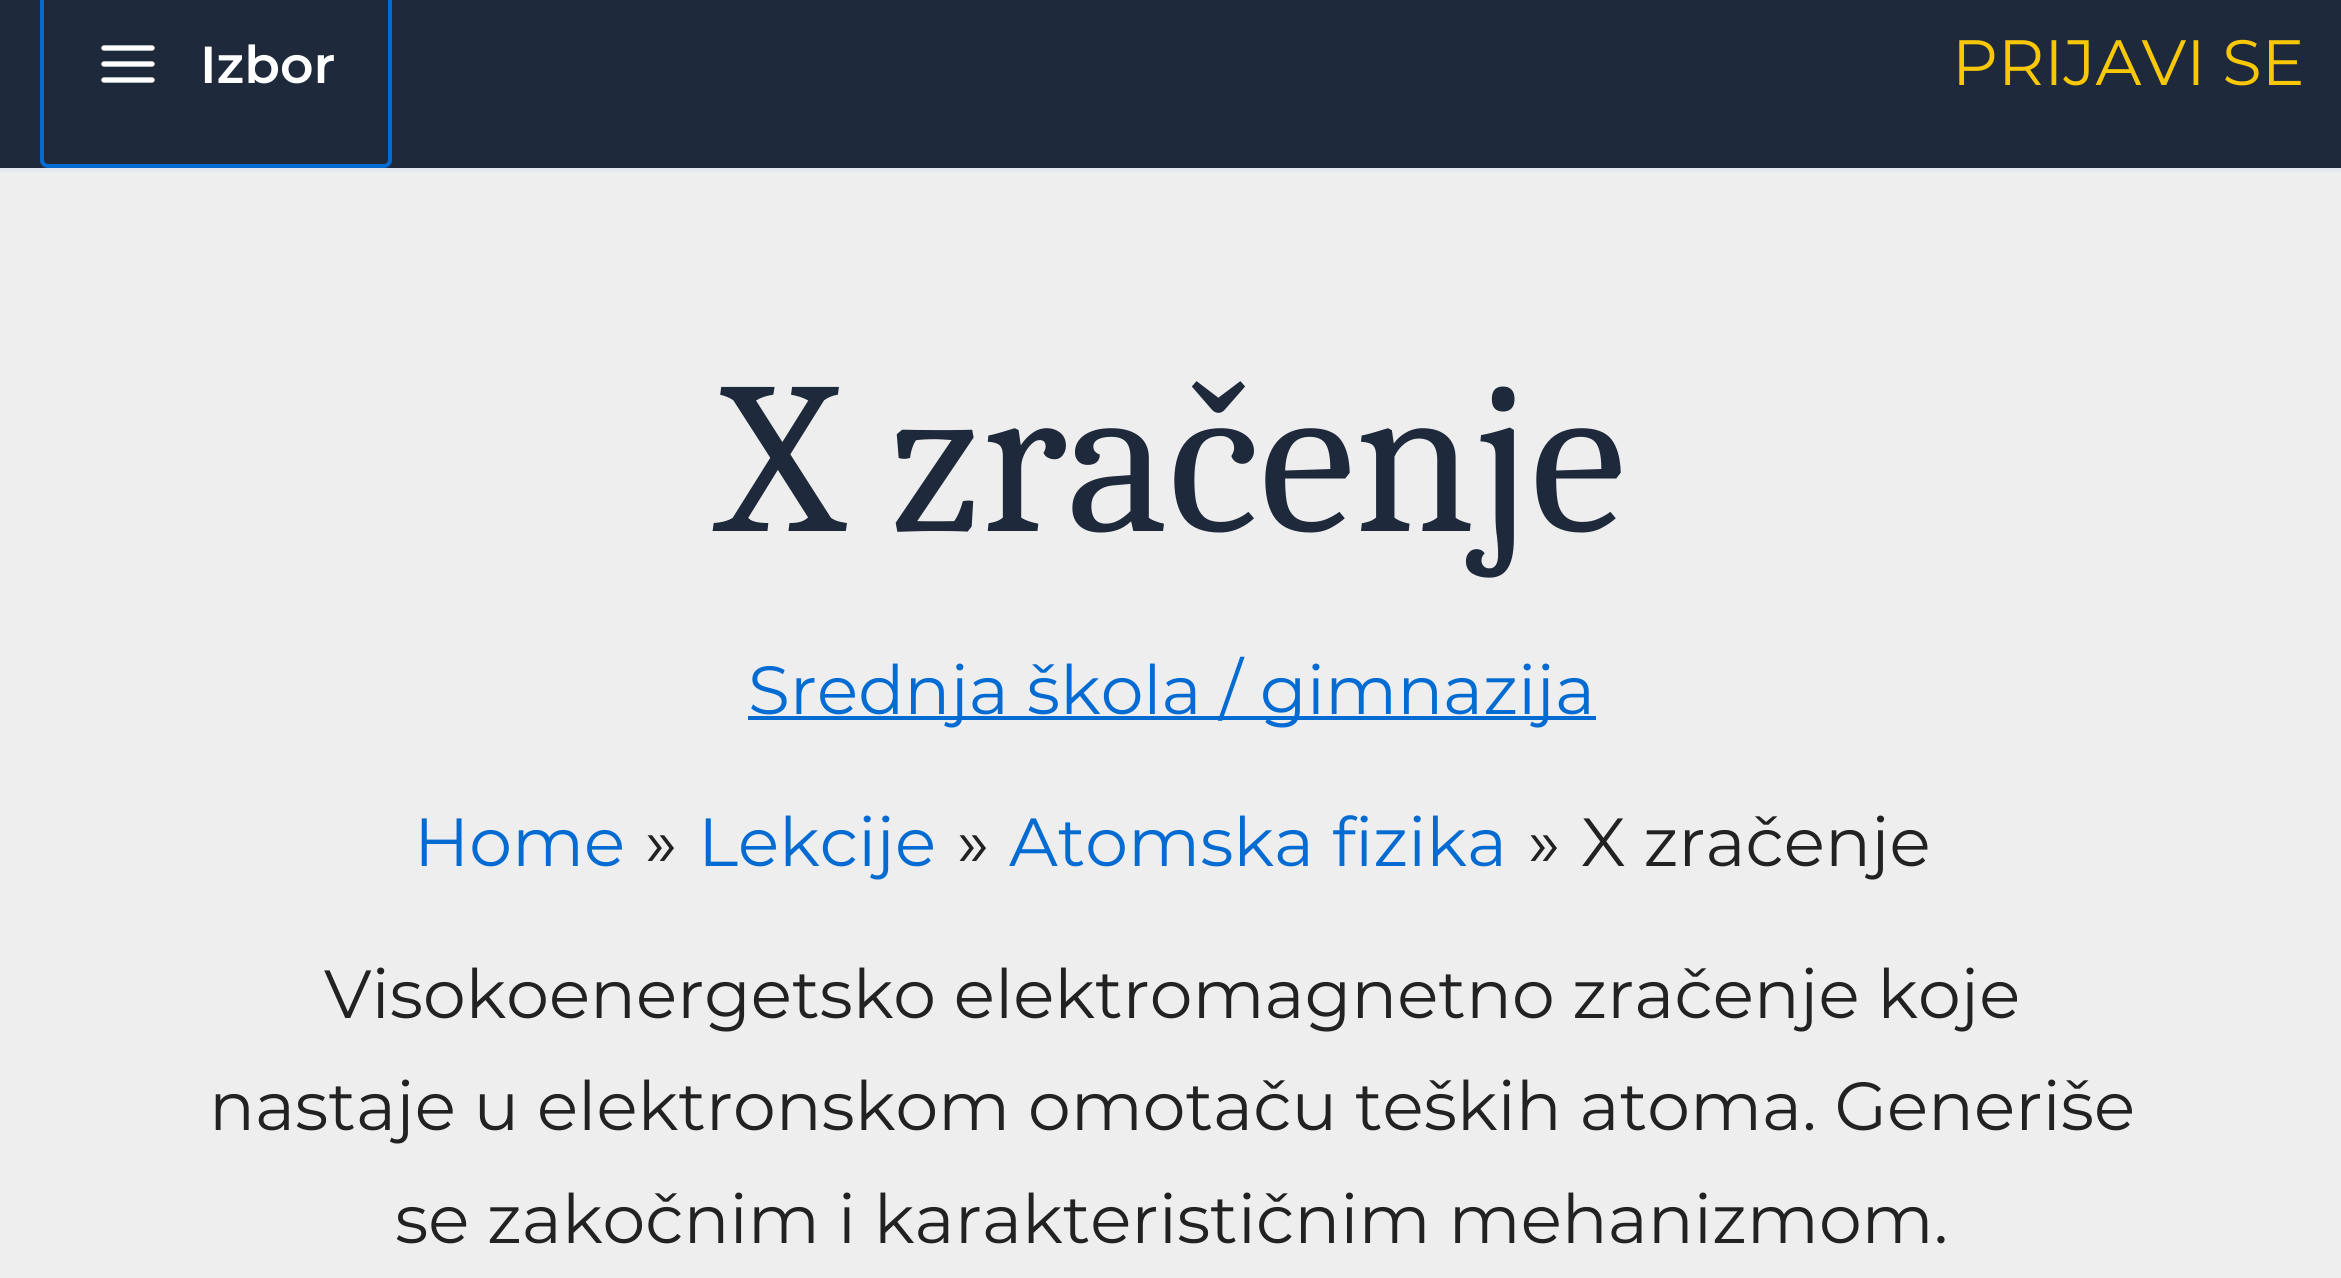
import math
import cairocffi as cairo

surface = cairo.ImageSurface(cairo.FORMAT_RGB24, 2341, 1278)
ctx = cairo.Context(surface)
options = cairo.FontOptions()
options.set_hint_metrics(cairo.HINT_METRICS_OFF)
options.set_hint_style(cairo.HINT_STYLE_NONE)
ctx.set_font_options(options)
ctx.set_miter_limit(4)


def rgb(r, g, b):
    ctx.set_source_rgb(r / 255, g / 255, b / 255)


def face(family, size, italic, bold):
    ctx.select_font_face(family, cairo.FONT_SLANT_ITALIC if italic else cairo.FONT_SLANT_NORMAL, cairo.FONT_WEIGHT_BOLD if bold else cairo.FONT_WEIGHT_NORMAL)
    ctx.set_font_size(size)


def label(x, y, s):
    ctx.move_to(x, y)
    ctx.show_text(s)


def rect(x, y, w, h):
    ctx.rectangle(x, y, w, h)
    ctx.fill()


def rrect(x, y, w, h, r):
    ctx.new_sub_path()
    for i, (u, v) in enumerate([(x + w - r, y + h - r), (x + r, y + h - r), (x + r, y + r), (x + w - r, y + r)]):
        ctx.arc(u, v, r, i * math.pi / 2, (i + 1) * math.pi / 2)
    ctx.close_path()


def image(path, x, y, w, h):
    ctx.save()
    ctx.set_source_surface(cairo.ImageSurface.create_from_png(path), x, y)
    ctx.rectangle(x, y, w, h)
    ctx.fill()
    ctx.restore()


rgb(238, 238, 238)
ctx.paint()
rgb(30, 41, 59)
rect(0, 0, 2341, 168)
rgb(226, 232, 240)
rect(0, 168, 2341, 4)
rrect(42, -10, 348, 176, 6)
rgb(4, 107, 210)
ctx.set_line_width(4)
ctx.stroke()
image('image0.png', 101, 45, 54, 38)
face('Montserrat SemiBold', 52, 0, 0)
rgb(255, 255, 255)
label(200, 83, 'Izbor')
face('Montserrat', 64, 0, 0)
rgb(248, 200, 7)
label(1952, 85, 'PRIJAVI SE')
face('Caladea', 216, 0, 0)
rgb(30, 41, 59)
label(718, 531, 'X zračenje')
rgb(4, 107, 210)
rect(748, 716, 848, 4)
face('Montserrat', 68, 0, 0)
label(748, 714, 'Srednja škola / gimnazija')
label(414, 866, 'Home')
rgb(34, 34, 34)
label(645, 866, '»')
rgb(4, 107, 210)
label(698, 866, 'Lekcije')
rgb(34, 34, 34)
label(957, 866, '»')
rgb(4, 107, 210)
label(1009, 866, 'Atomska fizika')
rgb(34, 34, 34)
label(1528, 866, '»')
label(1581, 866, 'X zračenje')
label(324, 1018, 'Visokoenergetsko elektromagnetno zračenje koje')
label(209, 1130, 'nastaje u elektronskom omotaču teških atoma. Generiše')
label(395, 1243, 'se zakočnim i karakterističnim mehanizmom.')
surface.write_to_png('render.png')
